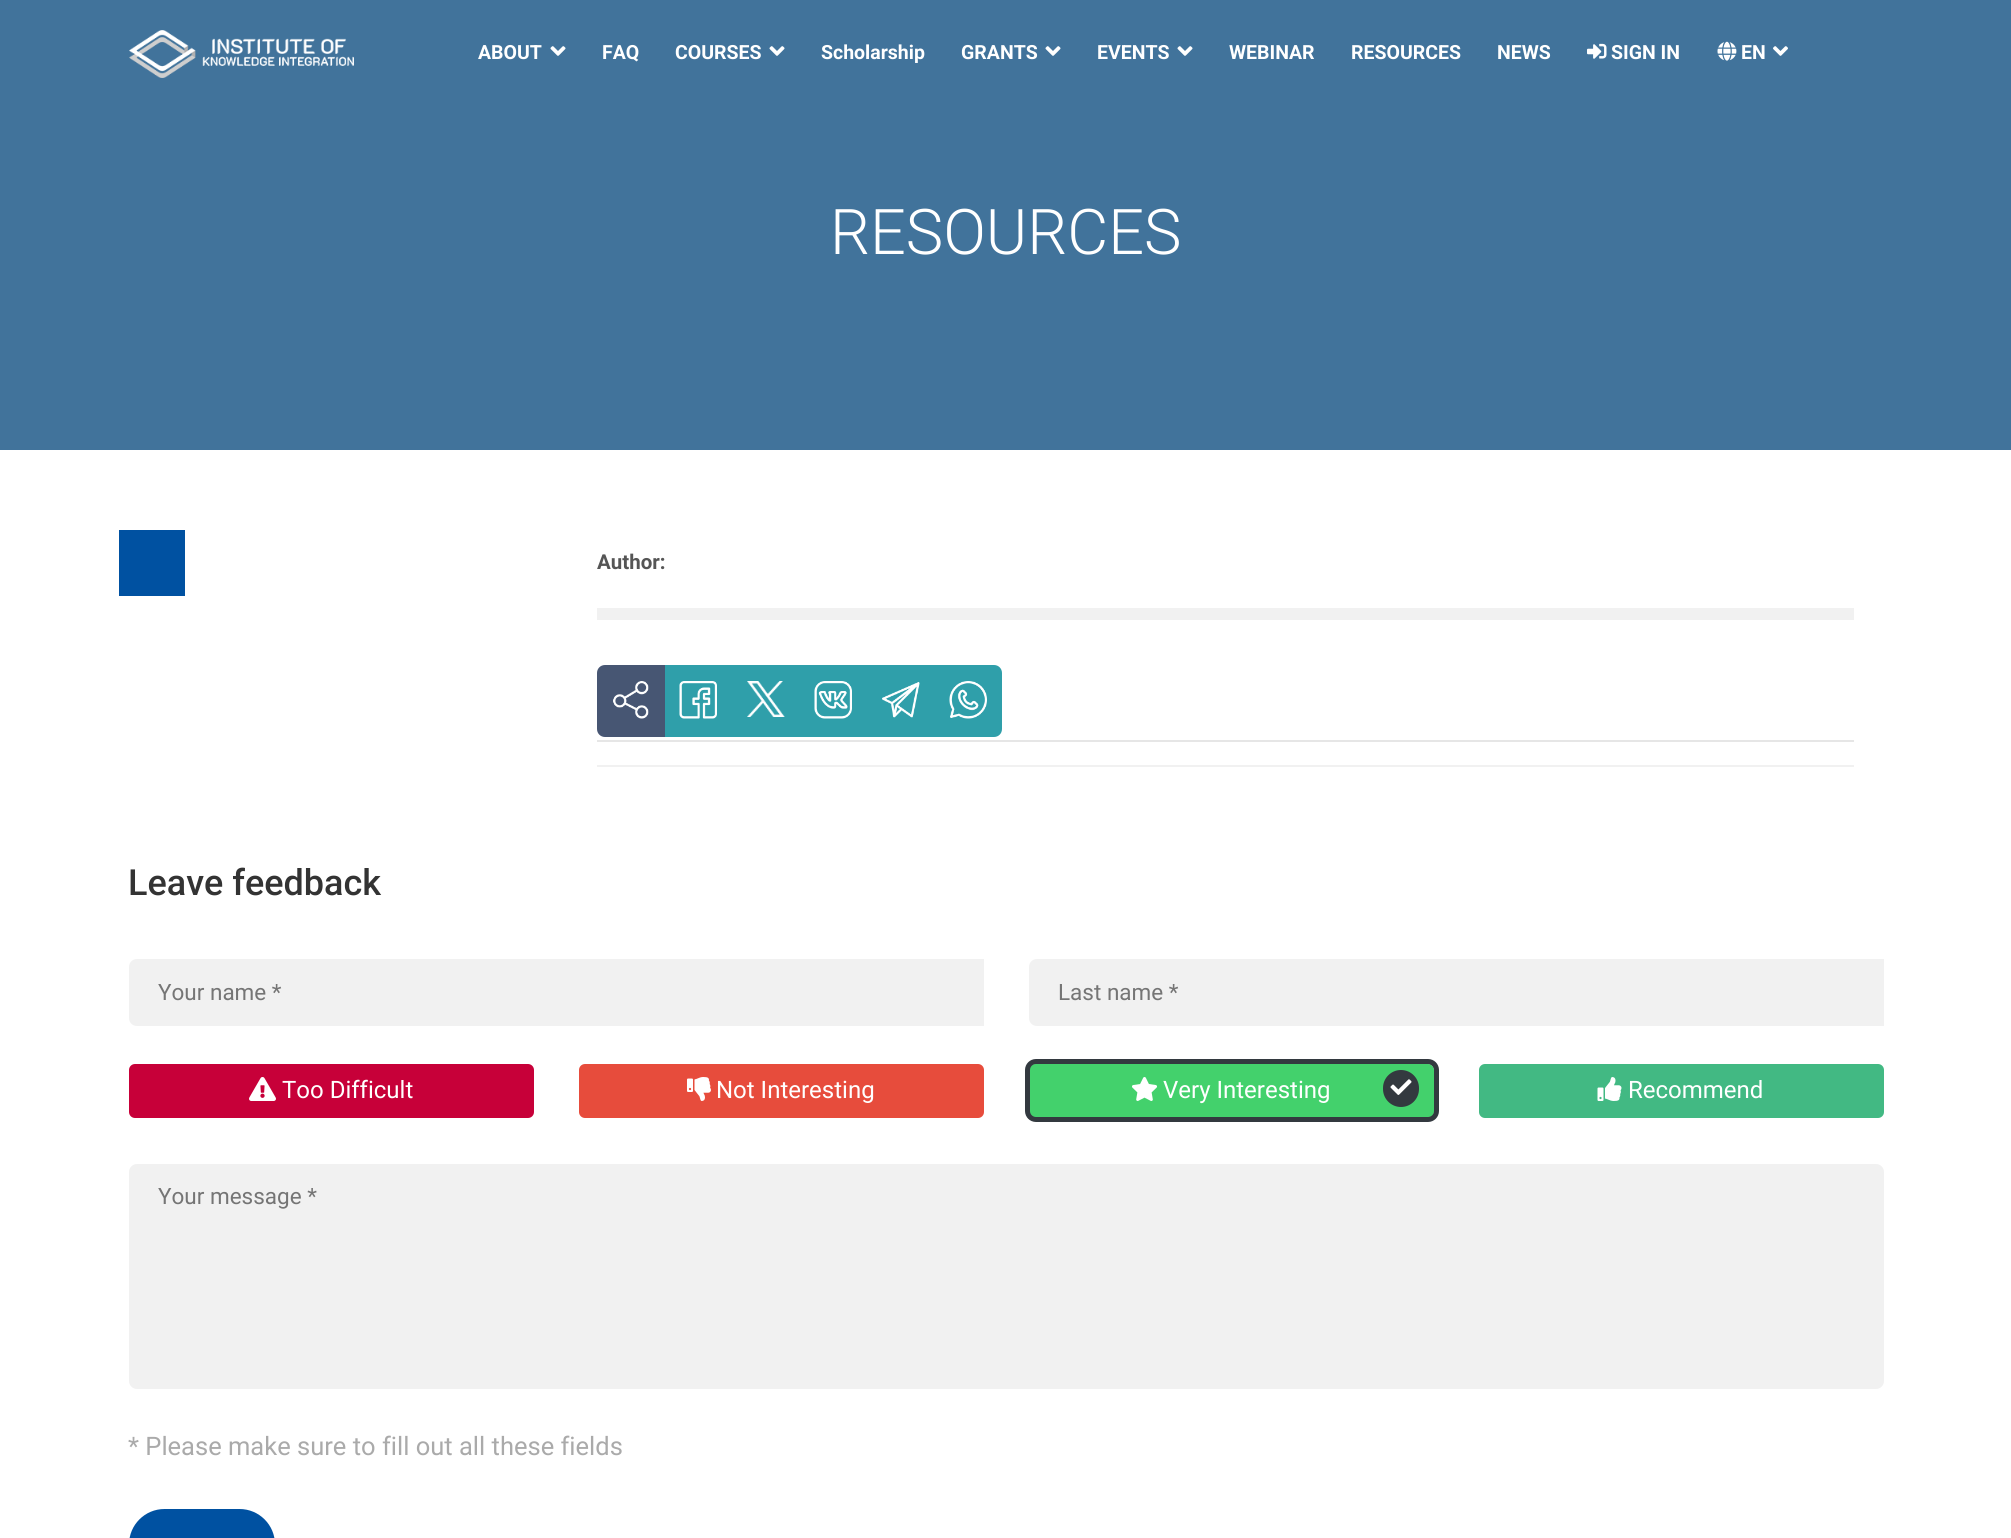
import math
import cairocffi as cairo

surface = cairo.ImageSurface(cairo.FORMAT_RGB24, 2011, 1538)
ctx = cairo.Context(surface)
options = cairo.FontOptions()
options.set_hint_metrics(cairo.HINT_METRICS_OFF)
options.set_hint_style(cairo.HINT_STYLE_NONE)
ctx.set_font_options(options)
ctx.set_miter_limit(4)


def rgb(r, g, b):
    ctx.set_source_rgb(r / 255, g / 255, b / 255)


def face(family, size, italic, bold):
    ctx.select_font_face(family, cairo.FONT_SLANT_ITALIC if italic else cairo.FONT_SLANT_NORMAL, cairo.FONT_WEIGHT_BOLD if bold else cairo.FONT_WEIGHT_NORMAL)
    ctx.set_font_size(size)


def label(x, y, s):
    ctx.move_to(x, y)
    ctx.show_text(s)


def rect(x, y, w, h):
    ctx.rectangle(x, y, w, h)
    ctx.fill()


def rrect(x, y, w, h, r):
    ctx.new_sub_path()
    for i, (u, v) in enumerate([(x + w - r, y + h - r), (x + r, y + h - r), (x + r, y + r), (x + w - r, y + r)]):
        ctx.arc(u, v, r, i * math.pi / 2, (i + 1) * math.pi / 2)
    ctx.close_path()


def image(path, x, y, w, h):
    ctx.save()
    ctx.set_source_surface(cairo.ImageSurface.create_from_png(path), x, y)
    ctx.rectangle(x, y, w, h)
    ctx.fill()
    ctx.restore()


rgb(255, 255, 255)
ctx.paint()
rgb(65, 115, 155)
rect(0, 0, 2011, 450)
image('image0.png', 129, 30, 225, 48)
face('Roboto', 19.5, 0, 1)
rgb(255, 255, 255)
label(478, 59, 'ABOUT')
image('image1.png', 550, 46, 16, 10)
label(602, 59, 'FAQ')
label(675, 59, 'COURSES')
image('image1.png', 769, 46, 16, 10)
label(821, 59, 'Scholarship')
label(961, 59, 'GRANTS')
image('image1.png', 1045, 46, 16, 10)
label(1097, 59, 'EVENTS')
image('image1.png', 1177, 46, 16, 10)
label(1229, 59, 'WEBINAR')
label(1351, 59, 'RESOURCES')
label(1497, 59, 'NEWS')
image('image2.png', 1587, 43, 20, 16)
label(1611, 59, 'SIGN IN')
image('image3.png', 1717, 41, 20, 20)
label(1741, 59, 'EN')
image('image4.png', 1773, 46, 15, 10)
face('Roboto Light', 63, 0, 0)
label(830, 254, 'RESOURCES')
rgb(0, 81, 161)
rect(119, 530, 66, 66)
face('Roboto', 20.5, 0, 1)
rgb(85, 85, 85)
label(597, 569, 'Author:')
rgb(241, 241, 241)
rect(597, 608, 1257, 12)
rect(597, 765, 1257, 2)
rgb(71, 86, 115)
ctx.new_path()
ctx.move_to(605, 665)
ctx.line_to(665, 665)
ctx.line_to(665, 737)
ctx.line_to(605, 737)
ctx.curve_to(600.5, 737, 597, 733.5, 597, 729)
ctx.line_to(597, 673)
ctx.curve_to(597, 668.5, 600.5, 665, 605, 665)
ctx.close_path()
ctx.fill()
image('image5.png', 613, 681, 36, 38)
rgb(47, 159, 170)
rect(665, 665, 270, 72)
image('image6.png', 679, 681, 38, 38)
ctx.new_path()
ctx.move_to(935, 665)
ctx.line_to(994, 665)
ctx.curve_to(998.5, 665, 1002, 668.5, 1002, 673)
ctx.line_to(1002, 729)
ctx.curve_to(1002, 733.5, 998.5, 737, 994, 737)
ctx.line_to(935, 737)
ctx.close_path()
ctx.fill()
image('image7.png', 949, 681, 38, 38)
image('image8.png', 747, 681, 38, 36)
image('image9.png', 814, 681, 38, 38)
image('image10.png', 882, 682, 38, 36)
rgb(230, 230, 230)
rect(597, 740, 1257, 2)
face('Roboto Medium', 36, 0, 0)
rgb(51, 51, 51)
label(128, 895, 'Leave feedback')
rgb(241, 241, 241)
ctx.new_path()
ctx.move_to(137, 959)
ctx.line_to(984, 959)
ctx.line_to(984, 1026)
ctx.line_to(137, 1026)
ctx.curve_to(132.5, 1026, 129, 1022.5, 129, 1018)
ctx.line_to(129, 967)
ctx.curve_to(129, 962.5, 132.5, 959, 137, 959)
ctx.close_path()
ctx.fill()
face('Roboto', 22.5, 0, 0)
rgb(117, 117, 117)
label(158, 1000, 'Your name *')
rgb(241, 241, 241)
ctx.new_path()
ctx.move_to(1037, 959)
ctx.line_to(1884, 959)
ctx.line_to(1884, 1026)
ctx.line_to(1037, 1026)
ctx.curve_to(1032.5, 1026, 1029, 1022.5, 1029, 1018)
ctx.line_to(1029, 967)
ctx.curve_to(1029, 962.5, 1032.5, 959, 1037, 959)
ctx.close_path()
ctx.fill()
rgb(117, 117, 117)
label(1058, 1000, 'Last name *')
rgb(199, 0, 57)
rrect(129, 1064, 405, 54, 6)
ctx.fill()
image('image11.png', 249, 1077, 27, 24)
face('Roboto', 24, 0, 0)
rgb(255, 255, 255)
label(282, 1098, 'Too Difficult')
rgb(231, 76, 60)
rrect(579, 1064, 405, 54, 6)
ctx.fill()
image('image12.png', 687, 1077, 24, 24)
rgb(255, 255, 255)
label(716, 1098, 'Not Interesting')
rrect(1027.5, 1062.5, 408, 57, 7.5)
rgb(51, 57, 63)
ctx.set_line_width(3)
ctx.stroke()
rgb(67, 209, 108)
rrect(1029, 1064, 405, 54, 6)
ctx.fill()
image('image13.png', 1132, 1077, 25, 24)
rrect(1027.5, 1061.5, 409, 58, 8.5)
rgb(51, 57, 63)
ctx.set_line_width(5)
ctx.stroke()
rgb(255, 255, 255)
label(1163, 1098, 'Very Interesting')
rgb(51, 57, 63)
rrect(1383, 1070, 36, 37, 18)
ctx.fill()
image('image14.png', 1390, 1079, 22, 16)
rgb(66, 185, 131)
rrect(1479, 1064, 405, 54, 6)
ctx.fill()
image('image15.png', 1597, 1077, 25, 24)
rgb(255, 255, 255)
label(1628, 1098, 'Recommend')
rgb(241, 241, 241)
rrect(129, 1164, 1755, 225, 8)
ctx.fill()
face('Roboto', 22.5, 0, 0)
rgb(117, 117, 117)
label(158, 1204, 'Your message *')
face('Roboto', 25.5, 0, 0)
rgb(170, 170, 170)
label(128, 1455, '* Please make sure to fill out all these fields')
rgb(0, 81, 161)
rrect(129, 1509, 146, 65, 35.5)
ctx.fill()
surface.write_to_png('render.png')
